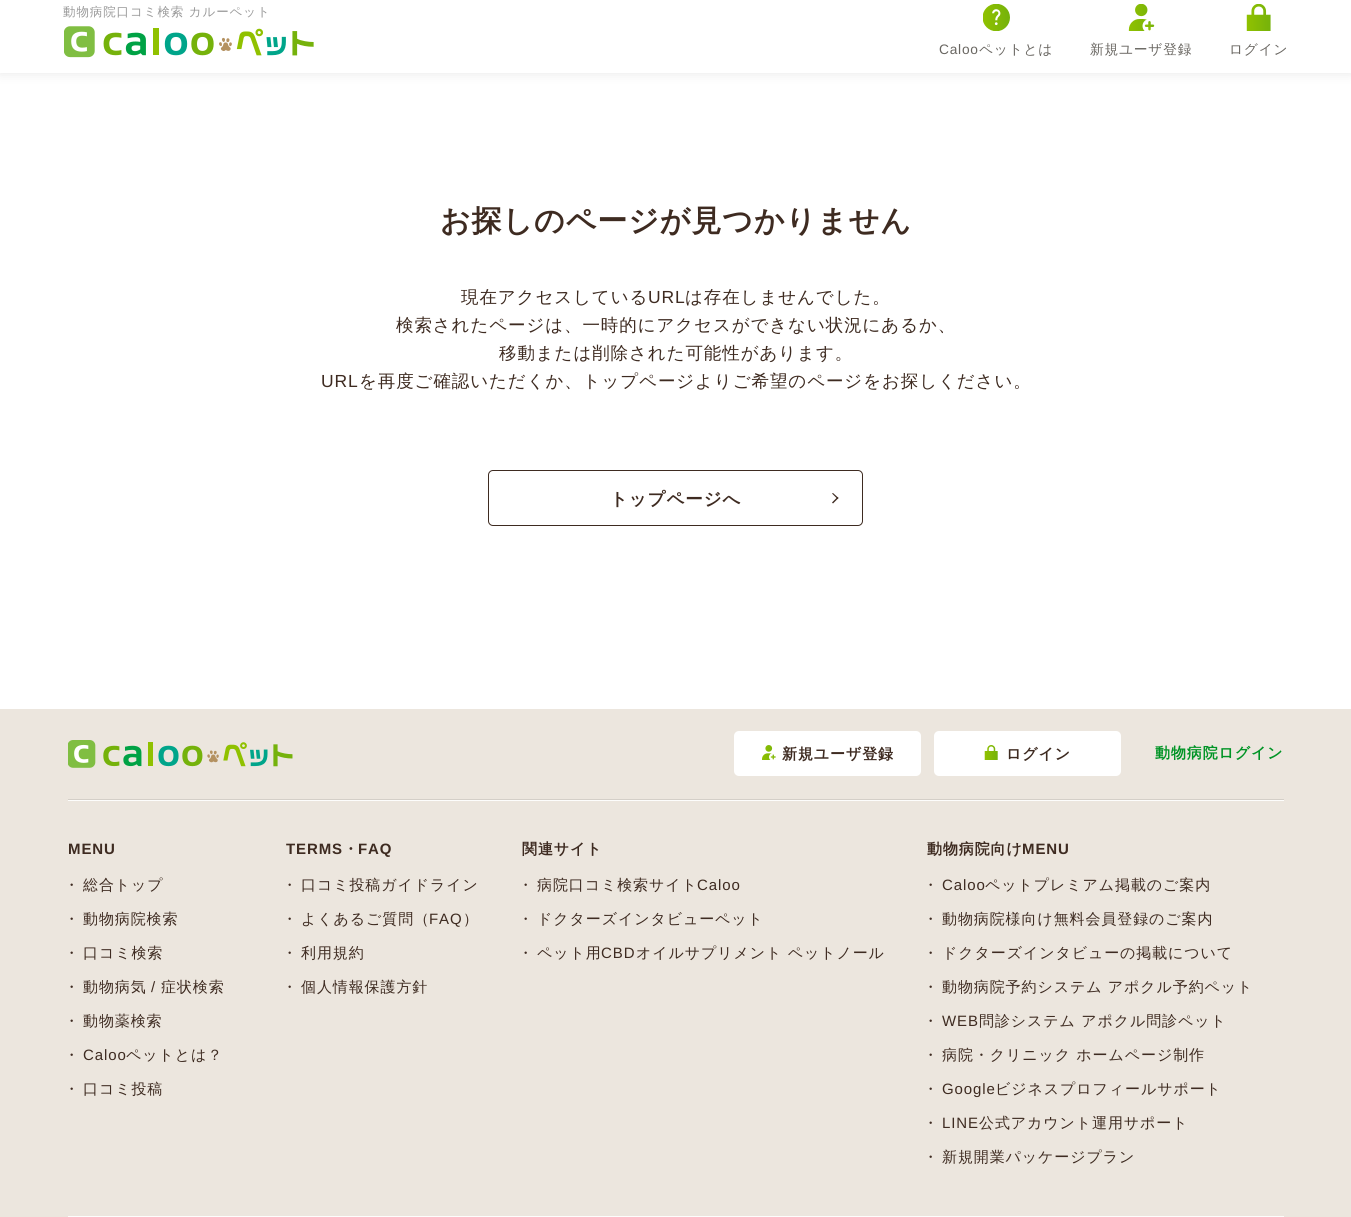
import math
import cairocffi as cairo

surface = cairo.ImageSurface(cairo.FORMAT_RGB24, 1351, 1217)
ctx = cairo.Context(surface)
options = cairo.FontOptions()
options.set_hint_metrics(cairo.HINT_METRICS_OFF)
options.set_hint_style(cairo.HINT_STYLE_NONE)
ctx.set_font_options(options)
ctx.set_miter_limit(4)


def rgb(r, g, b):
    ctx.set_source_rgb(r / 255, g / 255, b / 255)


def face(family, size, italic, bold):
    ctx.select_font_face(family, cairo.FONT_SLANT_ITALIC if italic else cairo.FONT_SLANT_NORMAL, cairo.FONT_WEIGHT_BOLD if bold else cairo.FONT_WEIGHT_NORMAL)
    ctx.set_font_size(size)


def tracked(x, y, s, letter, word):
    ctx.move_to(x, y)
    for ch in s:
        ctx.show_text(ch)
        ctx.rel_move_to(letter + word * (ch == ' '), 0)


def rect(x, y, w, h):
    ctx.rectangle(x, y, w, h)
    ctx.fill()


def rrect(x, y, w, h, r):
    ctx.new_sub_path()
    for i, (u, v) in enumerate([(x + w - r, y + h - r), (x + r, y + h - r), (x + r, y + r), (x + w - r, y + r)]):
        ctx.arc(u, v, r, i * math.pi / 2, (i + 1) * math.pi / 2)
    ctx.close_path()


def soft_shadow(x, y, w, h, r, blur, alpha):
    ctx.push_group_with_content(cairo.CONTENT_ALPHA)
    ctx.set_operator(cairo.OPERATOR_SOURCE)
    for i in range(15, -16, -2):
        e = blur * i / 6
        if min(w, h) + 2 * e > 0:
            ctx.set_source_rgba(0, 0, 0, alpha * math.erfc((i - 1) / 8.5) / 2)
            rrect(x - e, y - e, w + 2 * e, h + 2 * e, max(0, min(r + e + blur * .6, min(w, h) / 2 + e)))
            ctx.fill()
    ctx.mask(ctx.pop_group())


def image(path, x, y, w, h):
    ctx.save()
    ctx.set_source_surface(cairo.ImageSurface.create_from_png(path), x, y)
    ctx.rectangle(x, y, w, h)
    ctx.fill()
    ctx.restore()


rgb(255, 255, 255)
ctx.paint()
ctx.save()
ctx.set_fill_rule(cairo.FILL_RULE_EVEN_ODD)
ctx.new_path()
ctx.move_to(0, 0)
ctx.line_to(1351, 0)
ctx.line_to(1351, 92)
ctx.line_to(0, 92)
ctx.close_path()
ctx.move_to(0, -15)
ctx.line_to(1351, -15)
ctx.line_to(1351, 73)
ctx.line_to(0, 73)
ctx.close_path()
ctx.clip()
rgb(0, 0, 0)
soft_shadow(0, -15, 1351, 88, 0, 6, 0.1)
ctx.restore()
ctx.set_source_rgba(1, 1, 1, 0.9)
rect(0, 72, 1351, 1)
face('WenQuanYi Zen Hei Medium', 12.5, 0, 0)
rgb(153, 153, 153)
tracked(63, 16, '動物病院口コミ検索 カルーペット', 0.9, 0)
image('image0.png', 64, 26, 250, 32)
image('image1.png', 983, 4, 27, 27)
face('Liberation Sans', 13.75, 0, 0)
rgb(105, 102, 97)
tracked(939, 54, 'Caloo', 0.75, 0)
face('WenQuanYi Zen Hei Medium', 13.75, 0, 0)
tracked(979, 54, 'ペットとは', 0.75, 0)
image('image2.png', 1128, 4, 27, 27)
tracked(1090, 54, '新規ユーザ登録', 0.75, 0)
image('image3.png', 1246, 4, 25, 27)
tracked(1229, 54, 'ログイン', 0.75, 0)
face('WenQuanYi Zen Hei', 30, 0, 1)
rgb(62, 43, 33)
tracked(440, 231, 'お探しのページが見つかりません', 0.9, 0)
face('WenQuanYi Zen Hei Medium', 17.5, 0, 0)
tracked(461, 303, '現在アクセスしている', 0.9, 0)
face('Liberation Sans', 17.5, 0, 0)
tracked(648, 303, 'URL', 0.9, 0)
face('WenQuanYi Zen Hei Medium', 17.5, 0, 0)
tracked(685, 303, 'は存在しませんでした。', 0.9, 0)
tracked(396, 331, '検索されたページは、一時的にアクセスができない状況にあるか、', 0.9, 0)
tracked(499, 359, '移動または削除された可能性があります。', 0.9, 0)
face('Liberation Sans', 17.5, 0, 0)
tracked(321, 387, 'URL', 0.9, 0)
face('WenQuanYi Zen Hei Medium', 17.5, 0, 0)
tracked(359, 387, 'を再度ご確認いただくか、トップページよりご希望のページをお探しください。', 0.9, 0)
rrect(488.5, 470.5, 374, 55, 4.5)
ctx.set_line_width(1)
ctx.stroke()
face('WenQuanYi Zen Hei', 17.5, 0, 1)
tracked(610, 505, 'トップページへ', 0.9, 0)
ctx.new_path()
ctx.move_to(833, 493)
ctx.line_to(838.5, 498)
ctx.line_to(837.5, 499)
ctx.line_to(832, 493.5)
ctx.close_path()
ctx.fill()
ctx.new_path()
ctx.move_to(837.5, 497)
ctx.line_to(838.5, 498)
ctx.line_to(833, 503.5)
ctx.line_to(832, 502.5)
ctx.close_path()
ctx.fill()
rgb(236, 230, 222)
rect(0, 709, 1351, 508)
rgb(253, 253, 252)
ctx.new_path()
ctx.move_to(68, 800)
ctx.line_to(68, 801)
ctx.line_to(1284, 801)
ctx.line_to(1284, 710)
ctx.line_to(1284, 800)
ctx.close_path()
ctx.fill()
rgb(212, 207, 200)
rect(68, 799, 1216, 1)
image('image4.png', 68, 740, 225, 28)
rgb(255, 255, 255)
rrect(734, 731, 187, 45, 5)
ctx.fill()
image('image5.png', 762, 745, 14, 15)
face('WenQuanYi Zen Hei', 15, 0, 1)
rgb(62, 43, 33)
tracked(782, 759, '新規ユーザ登録', 0.9, 0)
rgb(255, 255, 255)
rrect(934, 731, 187, 45, 5)
ctx.fill()
image('image6.png', 984, 745, 14, 15)
rgb(62, 43, 33)
tracked(1006, 759, 'ログイン', 0.9, 0)
rgb(0, 148, 37)
tracked(1155, 758, '動物病院ログイン', 0.9, 0)
face('Liberation Sans', 15, 0, 1)
rgb(62, 43, 33)
tracked(68, 854, 'MENU', 0.9, 0)
face('WenQuanYi Zen Hei Medium', 15, 0, 0)
tracked(64, 890, '・', 0.9, 0)
tracked(83, 890, '総合トップ', 0.9, 0)
tracked(64, 924, '・', 0.9, 0)
tracked(83, 924, '動物病院検索', 0.9, 0)
tracked(64, 958, '・', 0.9, 0)
tracked(83, 958, '口コミ検索', 0.9, 0)
tracked(64, 992, '・', 0.9, 0)
tracked(83, 992, '動物病気', 0.9, 0)
face('Liberation Sans', 15, 0, 0)
tracked(151, 992, '/', 0.9, 0)
face('WenQuanYi Zen Hei Medium', 15, 0, 0)
tracked(161, 992, '症状検索', 0.9, 0)
tracked(64, 1026, '・', 0.9, 0)
tracked(83, 1026, '動物薬検索', 0.9, 0)
tracked(64, 1060, '・', 0.9, 0)
face('Liberation Sans', 15, 0, 0)
tracked(83, 1060, 'Caloo', 0.9, 0)
face('WenQuanYi Zen Hei Medium', 15, 0, 0)
tracked(126, 1060, 'ペットとは？', 0.9, 0)
tracked(64, 1094, '・', 0.9, 0)
tracked(83, 1094, '口コミ投稿', 0.9, 0)
face('Liberation Sans', 15, 0, 1)
tracked(286, 854, 'TERMS', 0.9, 0)
face('WenQuanYi Zen Hei', 15, 0, 1)
tracked(343, 854, '・', 0.9, 0)
face('Liberation Sans', 15, 0, 1)
tracked(358, 854, 'FAQ', 0.9, 0)
face('WenQuanYi Zen Hei Medium', 15, 0, 0)
tracked(282, 890, '・', 0.9, 0)
tracked(301, 890, '口コミ投稿ガイドライン', 0.9, 0)
tracked(282, 924, '・', 0.9, 0)
tracked(301, 924, 'よくあるご質問（', 0.9, 0)
face('Liberation Sans', 15, 0, 0)
tracked(429, 924, 'FAQ', 0.9, 0)
face('WenQuanYi Zen Hei Medium', 15, 0, 0)
tracked(463, 924, '）', 0.9, 0)
tracked(282, 958, '・', 0.9, 0)
tracked(301, 958, '利用規約', 0.9, 0)
tracked(282, 992, '・', 0.9, 0)
tracked(301, 992, '個人情報保護方針', 0.9, 0)
face('WenQuanYi Zen Hei', 15, 0, 1)
tracked(522, 854, '関連サイト', 0.9, 0)
face('WenQuanYi Zen Hei Medium', 15, 0, 0)
tracked(518, 890, '・', 0.9, 0)
tracked(537, 890, '病院口コミ検索サイト', 0.9, 0)
face('Liberation Sans', 15, 0, 0)
tracked(697, 890, 'Caloo', 0.9, 0)
face('WenQuanYi Zen Hei Medium', 15, 0, 0)
tracked(518, 924, '・', 0.9, 0)
tracked(537, 924, 'ドクターズインタビューペット', 0.9, 0)
tracked(518, 958, '・', 0.9, 0)
tracked(537, 958, 'ペット用', 0.9, 0)
face('Liberation Sans', 15, 0, 0)
tracked(601, 958, 'CBD', 0.9, 0)
face('WenQuanYi Zen Hei Medium', 15, 0, 0)
tracked(636, 958, 'オイルサプリメント ペットノール', 0.9, 0)
face('WenQuanYi Zen Hei', 15, 0, 1)
tracked(927, 854, '動物病院向け', 0.9, 0)
face('Liberation Sans', 15, 0, 1)
tracked(1022, 854, 'MENU', 0.9, 0)
face('WenQuanYi Zen Hei Medium', 15, 0, 0)
tracked(923, 890, '・', 0.9, 0)
face('Liberation Sans', 15, 0, 0)
tracked(942, 890, 'Caloo', 0.9, 0)
face('WenQuanYi Zen Hei Medium', 15, 0, 0)
tracked(985, 890, 'ペットプレミアム掲載のご案内', 0.9, 0)
tracked(923, 924, '・', 0.9, 0)
tracked(942, 924, '動物病院様向け無料会員登録のご案内', 0.9, 0)
tracked(923, 958, '・', 0.9, 0)
tracked(942, 958, 'ドクターズインタビューの掲載について', 0.9, 0)
tracked(923, 992, '・', 0.9, 0)
tracked(942, 992, '動物病院予約システム アポクル予約ペット', 0.9, 0)
tracked(923, 1026, '・', 0.9, 0)
face('Liberation Sans', 15, 0, 0)
tracked(942, 1026, 'WEB', 0.9, 0)
face('WenQuanYi Zen Hei Medium', 15, 0, 0)
tracked(979, 1026, '問診システム アポクル問診ペット', 0.9, 0)
tracked(923, 1060, '・', 0.9, 0)
tracked(942, 1060, '病院・クリニック ホームページ制作', 0.9, 0)
tracked(923, 1094, '・', 0.9, 0)
face('Liberation Sans', 15, 0, 0)
tracked(942, 1094, 'Google', 0.9, 0)
face('WenQuanYi Zen Hei Medium', 15, 0, 0)
tracked(995, 1094, 'ビジネスプロフィールサポート', 0.9, 0)
tracked(923, 1128, '・', 0.9, 0)
face('Liberation Sans', 15, 0, 0)
tracked(942, 1128, 'LINE', 0.9, 0)
face('WenQuanYi Zen Hei Medium', 15, 0, 0)
tracked(979, 1128, '公式アカウント運用サポート', 0.9, 0)
tracked(923, 1162, '・', 0.9, 0)
tracked(942, 1162, '新規開業パッケージプラン', 0.9, 0)
rgb(253, 253, 252)
ctx.new_path()
ctx.move_to(68, 1216)
ctx.line_to(68, 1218)
ctx.line_to(1284, 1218)
ctx.line_to(1284, 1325)
ctx.line_to(1284, 1216)
ctx.close_path()
ctx.fill()
surface.write_to_png('render.png')
